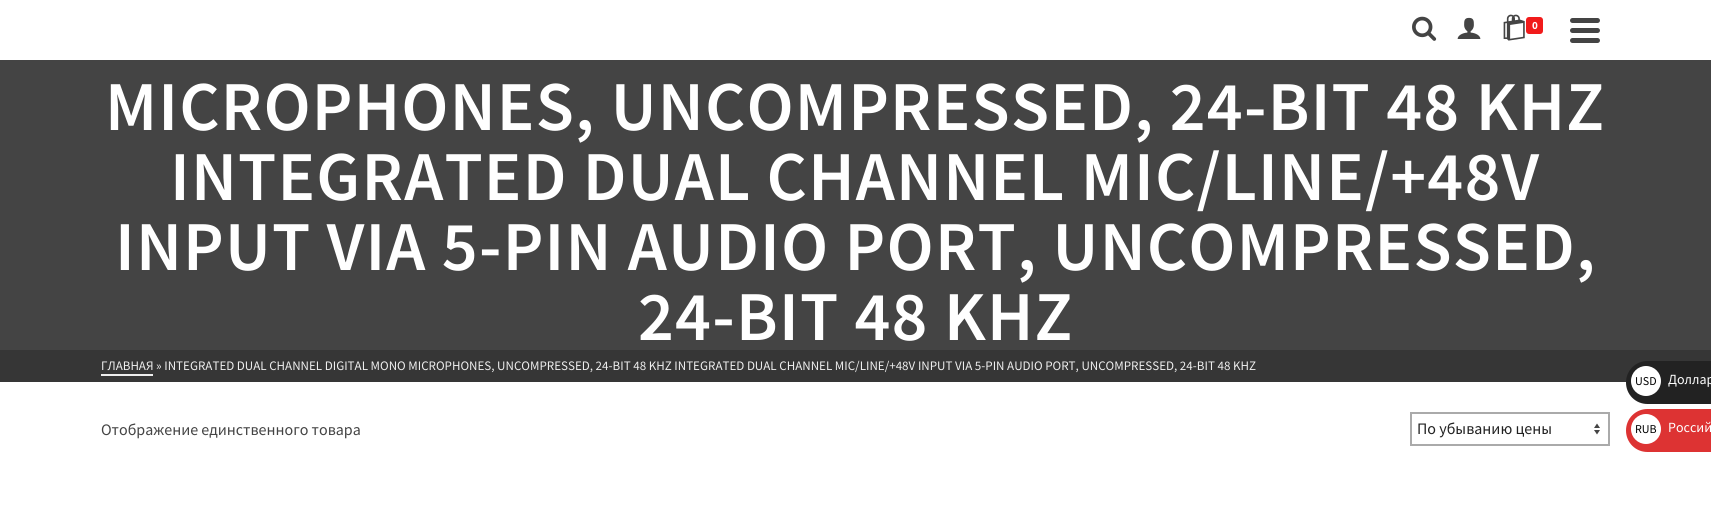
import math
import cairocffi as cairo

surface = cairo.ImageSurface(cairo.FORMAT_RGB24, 1711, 508)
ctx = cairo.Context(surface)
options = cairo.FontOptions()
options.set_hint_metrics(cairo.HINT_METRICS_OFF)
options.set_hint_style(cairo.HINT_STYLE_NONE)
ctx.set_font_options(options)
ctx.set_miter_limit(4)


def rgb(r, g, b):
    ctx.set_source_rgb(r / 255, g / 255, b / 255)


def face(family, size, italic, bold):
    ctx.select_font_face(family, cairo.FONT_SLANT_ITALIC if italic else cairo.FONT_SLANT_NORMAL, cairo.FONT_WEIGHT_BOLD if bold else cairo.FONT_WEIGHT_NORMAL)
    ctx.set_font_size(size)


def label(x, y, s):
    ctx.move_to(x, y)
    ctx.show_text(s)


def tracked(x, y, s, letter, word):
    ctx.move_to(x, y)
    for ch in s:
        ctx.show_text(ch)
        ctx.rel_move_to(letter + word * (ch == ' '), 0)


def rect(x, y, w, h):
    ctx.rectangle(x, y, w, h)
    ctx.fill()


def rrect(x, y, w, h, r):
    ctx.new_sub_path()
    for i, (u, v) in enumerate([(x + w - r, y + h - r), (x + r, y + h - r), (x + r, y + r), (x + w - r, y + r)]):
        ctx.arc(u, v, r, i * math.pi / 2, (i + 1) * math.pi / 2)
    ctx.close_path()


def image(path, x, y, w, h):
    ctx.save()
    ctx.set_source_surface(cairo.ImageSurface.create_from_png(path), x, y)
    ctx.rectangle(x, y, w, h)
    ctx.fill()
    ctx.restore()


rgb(255, 255, 255)
ctx.paint()
image('image0.png', 1412, 16, 25, 25)
image('image1.png', 1457, 17, 24, 22)
image('image2.png', 1503, 14, 22, 27)
rgb(241, 27, 27)
rrect(1526, 17, 17, 17, 3)
ctx.fill()
face('Source Sans Pro', 11, 0, 1)
rgb(255, 255, 255)
label(1532, 29, '0')
rgb(68, 68, 68)
rrect(1570, 18, 30, 5, 2.5)
ctx.fill()
rrect(1570, 28, 30, 5, 2.5)
ctx.fill()
rrect(1570, 38, 30, 5, 2.5)
ctx.fill()
rect(0, 60, 1711, 290)
face('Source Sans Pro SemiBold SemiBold', 70, 0, 0)
rgb(255, 255, 255)
tracked(105, 130, 'MICROPHONES, UNCOMPRESSED, 24-BIT 48 KHZ', 1.2, 0)
tracked(170, 200, 'INTEGRATED DUAL CHANNEL MIC/LINE/+48V', 1.2, 0)
tracked(115, 270, 'INPUT VIA 5-PIN AUDIO PORT, UNCOMPRESSED,', 1.2, 0)
tracked(638, 340, '24-BIT 48 KHZ', 1.2, 0)
rgb(54, 54, 54)
rect(0, 350, 1711, 32)
face('Source Sans Pro', 13, 0, 0)
rgb(238, 238, 238)
label(101, 370, 'ГЛАВНАЯ » INTEGRATED DUAL CHANNEL DIGITAL MONO MICROPHONES, UNCOMPRESSED, 24-BIT 48 KHZ INTEGRATED DUAL CHANNEL MIC/LINE/+48V INPUT VIA 5-PIN AUDIO PORT, UNCOMPRESSED, 24-BIT 48 KHZ')
rect(101, 374, 52, 2)
face('Source Sans Pro', 16, 0, 0)
rgb(68, 68, 68)
label(101, 435, 'Отображение единственного товара')
ctx.new_path()
ctx.move_to(1594, 428)
ctx.line_to(1597, 423.5)
ctx.line_to(1600, 428)
ctx.close_path()
ctx.move_to(1600, 430)
ctx.line_to(1597, 434.5)
ctx.line_to(1594, 430)
ctx.close_path()
ctx.fill()
ctx.rectangle(1411, 413, 198, 32)
rgb(170, 170, 170)
ctx.stroke()
rgb(34, 34, 34)
label(1417, 434, 'По убыванию цены')
ctx.new_path()
ctx.move_to(1647.5, 361)
ctx.line_to(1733, 361)
ctx.line_to(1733, 404)
ctx.line_to(1647.5, 404)
ctx.curve_to(1635.5, 404, 1626, 394.5, 1626, 382.5)
ctx.curve_to(1626, 370.5, 1635.5, 361, 1647.5, 361)
ctx.close_path()
ctx.fill()
rgb(255, 255, 255)
ctx.arc(1646, 381, 15, 0, 2 * math.pi)
ctx.fill()
face('Source Sans Pro', 12, 0, 0)
rgb(0, 0, 0)
label(1635, 385, 'USD')
face('Source Sans Pro', 14, 0, 0)
rgb(255, 255, 255)
label(1668, 384, 'Доллар')
rgb(221, 51, 51)
ctx.new_path()
ctx.move_to(1647.5, 409)
ctx.line_to(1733, 409)
ctx.line_to(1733, 452)
ctx.line_to(1647.5, 452)
ctx.curve_to(1635.5, 452, 1626, 442.5, 1626, 430.5)
ctx.curve_to(1626, 418.5, 1635.5, 409, 1647.5, 409)
ctx.close_path()
ctx.fill()
rgb(255, 255, 255)
ctx.arc(1646, 429, 15, 0, 2 * math.pi)
ctx.fill()
face('Source Sans Pro', 12, 0, 0)
rgb(0, 0, 0)
label(1635, 433, 'RUB')
face('Source Sans Pro', 14, 0, 0)
rgb(255, 255, 255)
label(1668, 432, 'Россий')
surface.write_to_png('render.png')
